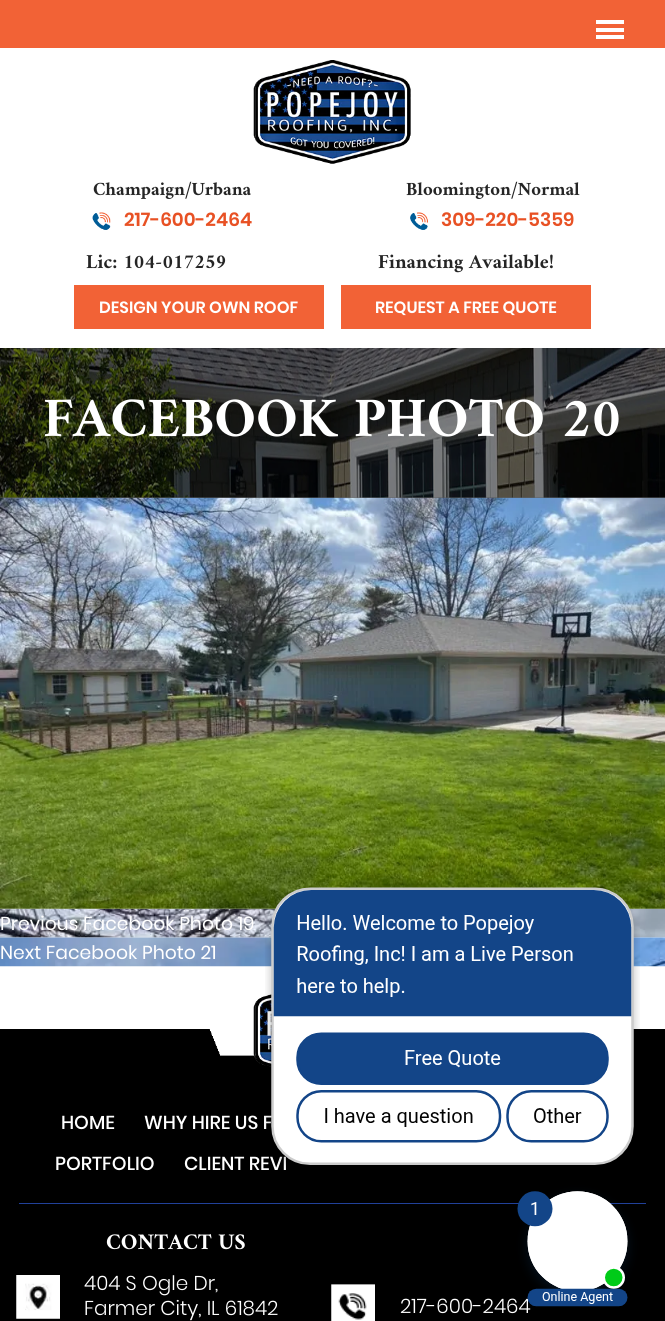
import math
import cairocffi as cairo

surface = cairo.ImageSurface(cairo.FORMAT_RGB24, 665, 1321)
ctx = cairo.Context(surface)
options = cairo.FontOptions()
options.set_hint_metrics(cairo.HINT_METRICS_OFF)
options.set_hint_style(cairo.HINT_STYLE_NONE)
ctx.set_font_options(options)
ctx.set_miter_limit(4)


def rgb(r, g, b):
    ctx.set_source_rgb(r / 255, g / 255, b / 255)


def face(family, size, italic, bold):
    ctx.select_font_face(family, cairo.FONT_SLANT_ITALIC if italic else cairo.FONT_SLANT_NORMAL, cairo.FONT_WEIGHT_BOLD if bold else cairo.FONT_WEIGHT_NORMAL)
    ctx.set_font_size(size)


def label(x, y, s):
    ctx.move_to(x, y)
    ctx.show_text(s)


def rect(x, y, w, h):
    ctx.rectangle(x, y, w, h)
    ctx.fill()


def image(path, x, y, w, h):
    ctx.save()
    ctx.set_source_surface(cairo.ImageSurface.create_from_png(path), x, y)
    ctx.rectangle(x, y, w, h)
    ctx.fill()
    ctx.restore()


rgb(255, 255, 255)
ctx.paint()
rgb(242, 98, 54)
rect(0, 0, 665, 48)
rgb(255, 255, 255)
rect(596, 20, 28, 4)
rect(596, 28, 28, 4)
rect(596, 35, 28, 4)
image('image0.png', 252, 60, 159, 104)
face('Amiri', 18.75, 0, 1)
rgb(37, 37, 37)
label(93, 195, 'Champaign/Urbana')
image('image1.png', 92, 212, 19, 18)
face('Poppins SemiBold', 18.75, 0, 0)
rgb(232, 81, 36)
label(124, 226, '217-600-2464')
face('Amiri', 18.75, 0, 1)
rgb(37, 37, 37)
label(406, 195, 'Bloomington/Normal')
image('image2.png', 410, 212, 18, 18)
face('Poppins SemiBold', 18.75, 0, 0)
rgb(232, 81, 36)
label(441, 226, '309-220-5359')
face('Amiri', 20, 0, 1)
rgb(37, 37, 37)
label(86, 268, 'Lic: 104-017259')
rgb(242, 98, 54)
rect(74, 285, 250, 44)
face('Poppins SemiBold', 16.25, 0, 0)
rgb(255, 255, 255)
label(99, 313, 'DESIGN YOUR OWN ROOF')
face('Amiri', 20, 0, 1)
rgb(37, 37, 37)
label(378, 268, 'Financing Available!')
rgb(242, 98, 54)
rect(341, 285, 250, 44)
face('Poppins SemiBold', 16.25, 0, 0)
rgb(255, 255, 255)
label(375, 313, 'REQUEST A FREE QUOTE')
image('image5.png', 0, 908, 665, 30)
image('image4.png', 0, 497, 665, 412)
image('image3.png', 0, 348, 665, 150)
ctx.set_source_rgba(0, 0, 0, 0.5)
rect(0, 348, 665, 150)
face('Amiri', 56.25, 0, 1)
rgb(255, 255, 255)
label(43, 436, 'FACEBOOK PHOTO 20')
face('Poppins', 18.75, 0, 0)
label(0, 930, 'Previous Facebook Photo 19')
image('image6.png', 0, 937, 665, 30)
label(0, 959, 'Next Facebook Photo 21')
rgb(0, 0, 0)
rect(0, 1029, 665, 292)
image('image8.png', 209, 978, 63, 90)
rgb(33, 65, 154)
rect(19, 1203, 627, 1)
face('Poppins Medium', 18.75, 0, 0)
rgb(255, 255, 255)
label(144, 1129, 'WHY HIRE US F')
label(184, 1170, 'CLIENT REVI')
face('Poppins Light', 20, 0, 0)
label(84, 1315, 'Farmer City, IL 61842')
image('image10.png', 331, 1284, 44, 37)
label(400, 1313, '217-600-2464')
image('image7.png', 265, 886, 375, 421)
face('Poppins Medium', 18.75, 0, 0)
label(61, 1129, 'HOME')
label(55, 1170, 'PORTFOLIO')
face('Amiri', 22.5, 0, 1)
label(106, 1249, 'CONTACT US')
image('image9.png', 16, 1275, 44, 44)
face('Poppins Light', 20, 0, 0)
label(84, 1290, '404 S Ogle Dr,')
surface.write_to_png('render.png')
